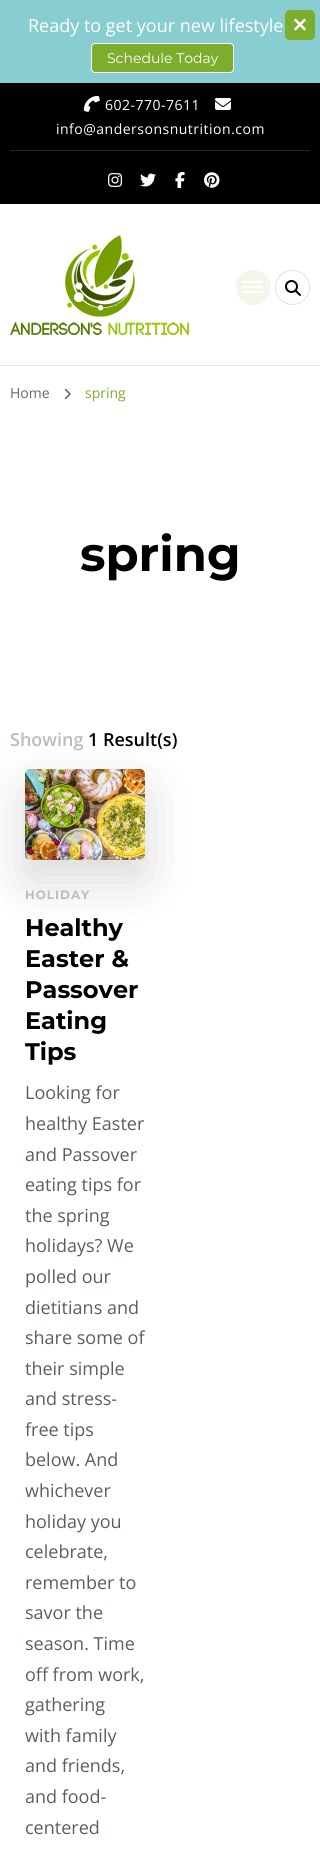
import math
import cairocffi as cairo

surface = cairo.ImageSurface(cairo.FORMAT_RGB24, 320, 1854)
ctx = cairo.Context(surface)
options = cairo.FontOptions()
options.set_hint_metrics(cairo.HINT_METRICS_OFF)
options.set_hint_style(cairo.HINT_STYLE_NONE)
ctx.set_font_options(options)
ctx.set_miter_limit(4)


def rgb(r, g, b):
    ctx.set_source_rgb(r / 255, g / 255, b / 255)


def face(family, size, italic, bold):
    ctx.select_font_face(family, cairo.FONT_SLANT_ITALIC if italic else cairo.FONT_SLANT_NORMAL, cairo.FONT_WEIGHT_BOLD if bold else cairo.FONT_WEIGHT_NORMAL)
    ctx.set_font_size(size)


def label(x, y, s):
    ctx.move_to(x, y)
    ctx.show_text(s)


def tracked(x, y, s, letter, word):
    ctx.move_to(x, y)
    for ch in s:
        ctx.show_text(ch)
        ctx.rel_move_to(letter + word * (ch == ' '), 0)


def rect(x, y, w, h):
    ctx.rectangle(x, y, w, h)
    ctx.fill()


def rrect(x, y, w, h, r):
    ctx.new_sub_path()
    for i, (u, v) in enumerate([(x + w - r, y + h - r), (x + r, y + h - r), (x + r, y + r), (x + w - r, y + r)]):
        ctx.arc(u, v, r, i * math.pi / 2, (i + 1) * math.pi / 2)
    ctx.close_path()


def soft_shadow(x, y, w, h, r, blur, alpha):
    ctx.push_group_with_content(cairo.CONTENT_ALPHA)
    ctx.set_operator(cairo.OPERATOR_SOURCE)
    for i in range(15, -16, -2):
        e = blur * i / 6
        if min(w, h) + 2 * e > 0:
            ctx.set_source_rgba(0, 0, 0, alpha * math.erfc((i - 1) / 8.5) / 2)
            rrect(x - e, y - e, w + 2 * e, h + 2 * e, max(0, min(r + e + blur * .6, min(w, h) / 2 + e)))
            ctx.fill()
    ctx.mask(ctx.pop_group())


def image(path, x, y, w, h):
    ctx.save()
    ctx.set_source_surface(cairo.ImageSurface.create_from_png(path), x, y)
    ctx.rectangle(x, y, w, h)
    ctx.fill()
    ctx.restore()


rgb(255, 255, 255)
ctx.paint()
rgb(136, 206, 208)
rect(0, 0, 320, 83)
face('Open Sans', 18, 0, 0)
rgb(255, 255, 255)
label(28, 32, 'Ready to get your new lifestyle')
rgb(125, 173, 44)
rrect(91.5, 43.5, 142, 29, 3.5)
ctx.fill_preserve()
rgb(255, 255, 255)
ctx.set_line_width(1)
ctx.stroke()
face('Montserrat', 14, 0, 0)
label(107, 63, 'Schedule Today')
rgb(125, 173, 44)
rrect(285, 10, 30, 30, 5)
ctx.fill()
image('image0.png', 294, 18, 12, 13)
rgb(229, 229, 229)
rect(0, 365, 320, 1)
rgb(0, 0, 0)
rect(0, 83, 320, 121)
image('image1.png', 83, 95, 17, 17)
face('Open Sans', 14, 0, 0)
rgb(255, 255, 255)
tracked(105, 110, '602-770-7611', 0.5, 0)
image('image2.png', 215, 98, 16, 12)
tracked(56, 134, 'info@andersonsnutrition.com', 0.5, 0)
rgb(38, 38, 38)
rect(10, 150, 300, 1)
image('image3.png', 108, 173, 14, 14)
image('image4.png', 140, 173, 16, 14)
image('image5.png', 175, 172, 10, 16)
image('image6.png', 204, 172, 16, 16)
image('image7.png', 10, 235, 179, 100)
rgb(242, 247, 234)
ctx.arc(253.5, 287.5, 17.5, 0, 2 * math.pi)
ctx.fill()
rgb(255, 255, 255)
rect(243, 281, 20, 2)
rect(243, 286, 20, 2)
rect(243, 291, 20, 2)
ctx.arc(292.5, 287.5, 17, 0, 2 * math.pi)
rgb(225, 225, 225)
ctx.stroke()
image('image8.png', 285, 280, 16, 16)
rgb(102, 102, 102)
label(10, 398, 'Home')
image('image9.png', 64, 388, 7, 12)
rgb(125, 173, 44)
label(85, 398, 'spring')
face('Montserrat', 48, 0, 1)
rgb(0, 0, 0)
label(80, 571, 'spring')
face('Open Sans SemiBold', 18, 0, 0)
rgb(185, 189, 189)
label(10, 746, 'Showing')
rgb(0, 0, 0)
label(88, 746, '1 Result(s)')
rgb(0, 0, 0)
soft_shadow(25, 789, 120, 91, 5, 25, 0.15)
image('image10.png', 25, 769, 120, 91)
face('Montserrat', 12, 0, 1)
rgb(185, 189, 189)
tracked(25, 899, 'HOLIDAY', 1, 0)
face('Montserrat', 24, 0, 1)
rgb(0, 0, 0)
label(25, 936, 'Healthy')
label(25, 967, 'Easter &')
label(25, 998, 'Passover')
label(25, 1029, 'Eating')
label(25, 1060, 'Tips')
face('Open Sans', 18, 0, 0)
rgb(89, 95, 95)
label(25, 1099, 'Looking for')
label(25, 1130, 'healthy Easter')
label(25, 1161, 'and Passover')
label(25, 1191, 'eating tips for')
label(25, 1222, 'the spring')
label(25, 1252, 'holidays? We')
label(25, 1283, 'polled our')
label(25, 1314, 'dietitians and')
label(25, 1344, 'share some of')
label(25, 1375, 'their simple')
label(25, 1405, 'and stress-')
label(25, 1436, 'free tips')
label(25, 1466, 'below. And')
label(25, 1497, 'whichever')
label(25, 1528, 'holiday you')
label(25, 1558, 'celebrate,')
label(25, 1589, 'remember to')
label(25, 1619, 'savor the')
label(25, 1650, 'season. Time')
label(25, 1681, 'off from work,')
label(25, 1711, 'gathering')
label(25, 1742, 'with family')
label(25, 1772, 'and friends,')
label(25, 1803, 'and food-')
label(25, 1834, 'centered')
surface.write_to_png('render.png')
